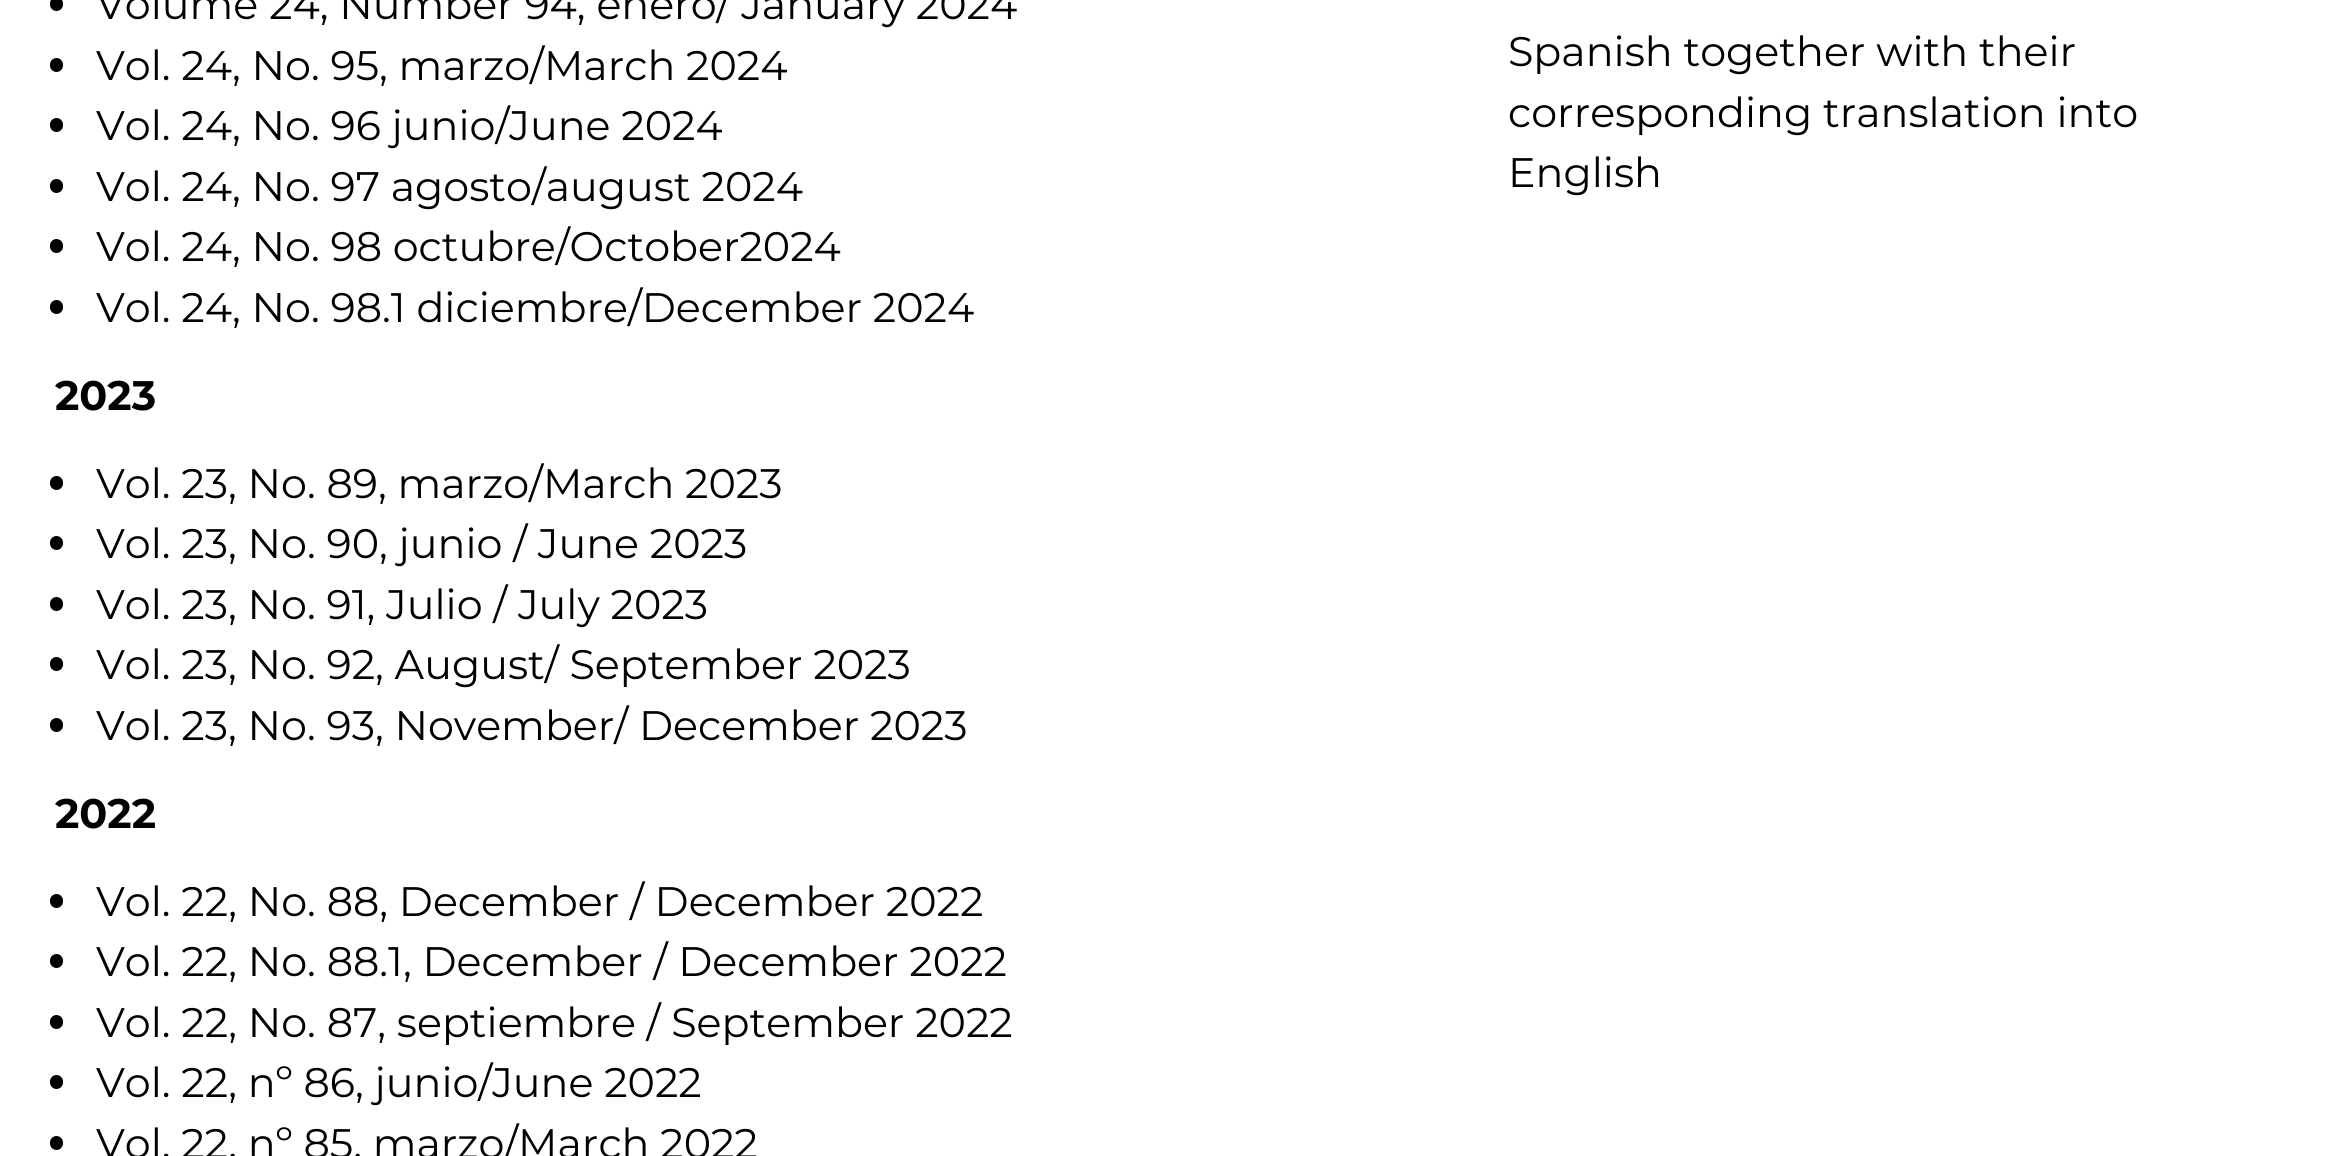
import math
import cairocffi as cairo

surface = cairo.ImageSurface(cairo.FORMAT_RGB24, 2345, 1156)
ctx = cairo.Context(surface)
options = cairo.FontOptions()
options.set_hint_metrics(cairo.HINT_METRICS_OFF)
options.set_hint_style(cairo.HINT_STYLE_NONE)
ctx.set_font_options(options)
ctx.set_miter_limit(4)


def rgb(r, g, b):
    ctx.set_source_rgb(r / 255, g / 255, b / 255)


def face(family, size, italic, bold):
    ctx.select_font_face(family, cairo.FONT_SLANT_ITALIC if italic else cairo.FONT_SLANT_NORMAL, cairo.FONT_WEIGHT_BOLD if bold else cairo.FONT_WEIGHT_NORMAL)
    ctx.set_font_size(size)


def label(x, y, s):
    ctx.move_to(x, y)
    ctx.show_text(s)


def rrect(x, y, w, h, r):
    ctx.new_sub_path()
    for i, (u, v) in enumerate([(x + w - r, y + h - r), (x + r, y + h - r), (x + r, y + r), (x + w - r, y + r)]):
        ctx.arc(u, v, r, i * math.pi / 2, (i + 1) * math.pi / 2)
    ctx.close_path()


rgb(255, 255, 255)
ctx.paint()
rgb(0, 0, 0)
rrect(50, -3, 13, 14, 6.5)
ctx.fill()
face('Montserrat', 41.25, 0, 0)
label(96, 19, 'Volume 24, Number 94, enero/ January 2024')
rrect(50, 58, 13, 14, 6.5)
ctx.fill()
label(96, 80, 'Vol. 24, No. 95, marzo/March 2024')
rrect(50, 118, 13, 14, 6.5)
ctx.fill()
label(96, 140, 'Vol. 24, No. 96 junio/June 2024')
rrect(50, 179, 13, 14, 6.5)
ctx.fill()
label(96, 201, 'Vol. 24, No. 97 agosto/august 2024')
rrect(50, 239, 13, 14, 6.5)
ctx.fill()
label(96, 261, 'Vol. 24, No. 98 octubre/October2024')
rrect(50, 300, 13, 14, 6.5)
ctx.fill()
label(96, 322, 'Vol. 24, No. 98.1 diciembre/December 2024')
face('Montserrat', 41.25, 0, 1)
label(55, 410, '2023')
rrect(50, 476, 13, 14, 6.5)
ctx.fill()
face('Montserrat', 41.25, 0, 0)
label(96, 498, 'Vol. 23, No. 89, marzo/March 2023')
rrect(50, 536, 13, 14, 6.5)
ctx.fill()
label(96, 558, 'Vol. 23, No. 90, junio / June 2023')
rrect(50, 597, 13, 14, 6.5)
ctx.fill()
label(96, 619, 'Vol. 23, No. 91, Julio / July 2023')
rrect(50, 657, 13, 14, 6.5)
ctx.fill()
label(96, 679, 'Vol. 23, No. 92, August/ September 2023')
rrect(50, 718, 13, 14, 6.5)
ctx.fill()
label(96, 740, 'Vol. 23, No. 93, November/ December 2023')
face('Montserrat', 41.25, 0, 1)
label(55, 828, '2022')
rrect(50, 894, 13, 14, 6.5)
ctx.fill()
face('Montserrat', 41.25, 0, 0)
label(96, 916, 'Vol. 22, No. 88, December / December 2022')
rrect(50, 954, 13, 14, 6.5)
ctx.fill()
label(96, 976, 'Vol. 22, No. 88.1, December / December 2022')
rrect(50, 1015, 13, 14, 6.5)
ctx.fill()
label(96, 1037, 'Vol. 22, No. 87, septiembre / September 2022')
rrect(50, 1075, 13, 14, 6.5)
ctx.fill()
label(96, 1097, 'Vol. 22, nº 86, junio/June 2022')
rrect(50, 1136, 13, 14, 6.5)
ctx.fill()
label(96, 1158, 'Vol. 22, nº 85, marzo/March 2022')
label(1508, 66, 'Spanish together with their')
label(1508, 127, 'corresponding translation into')
label(1508, 187, 'English')
surface.write_to_png('render.png')
